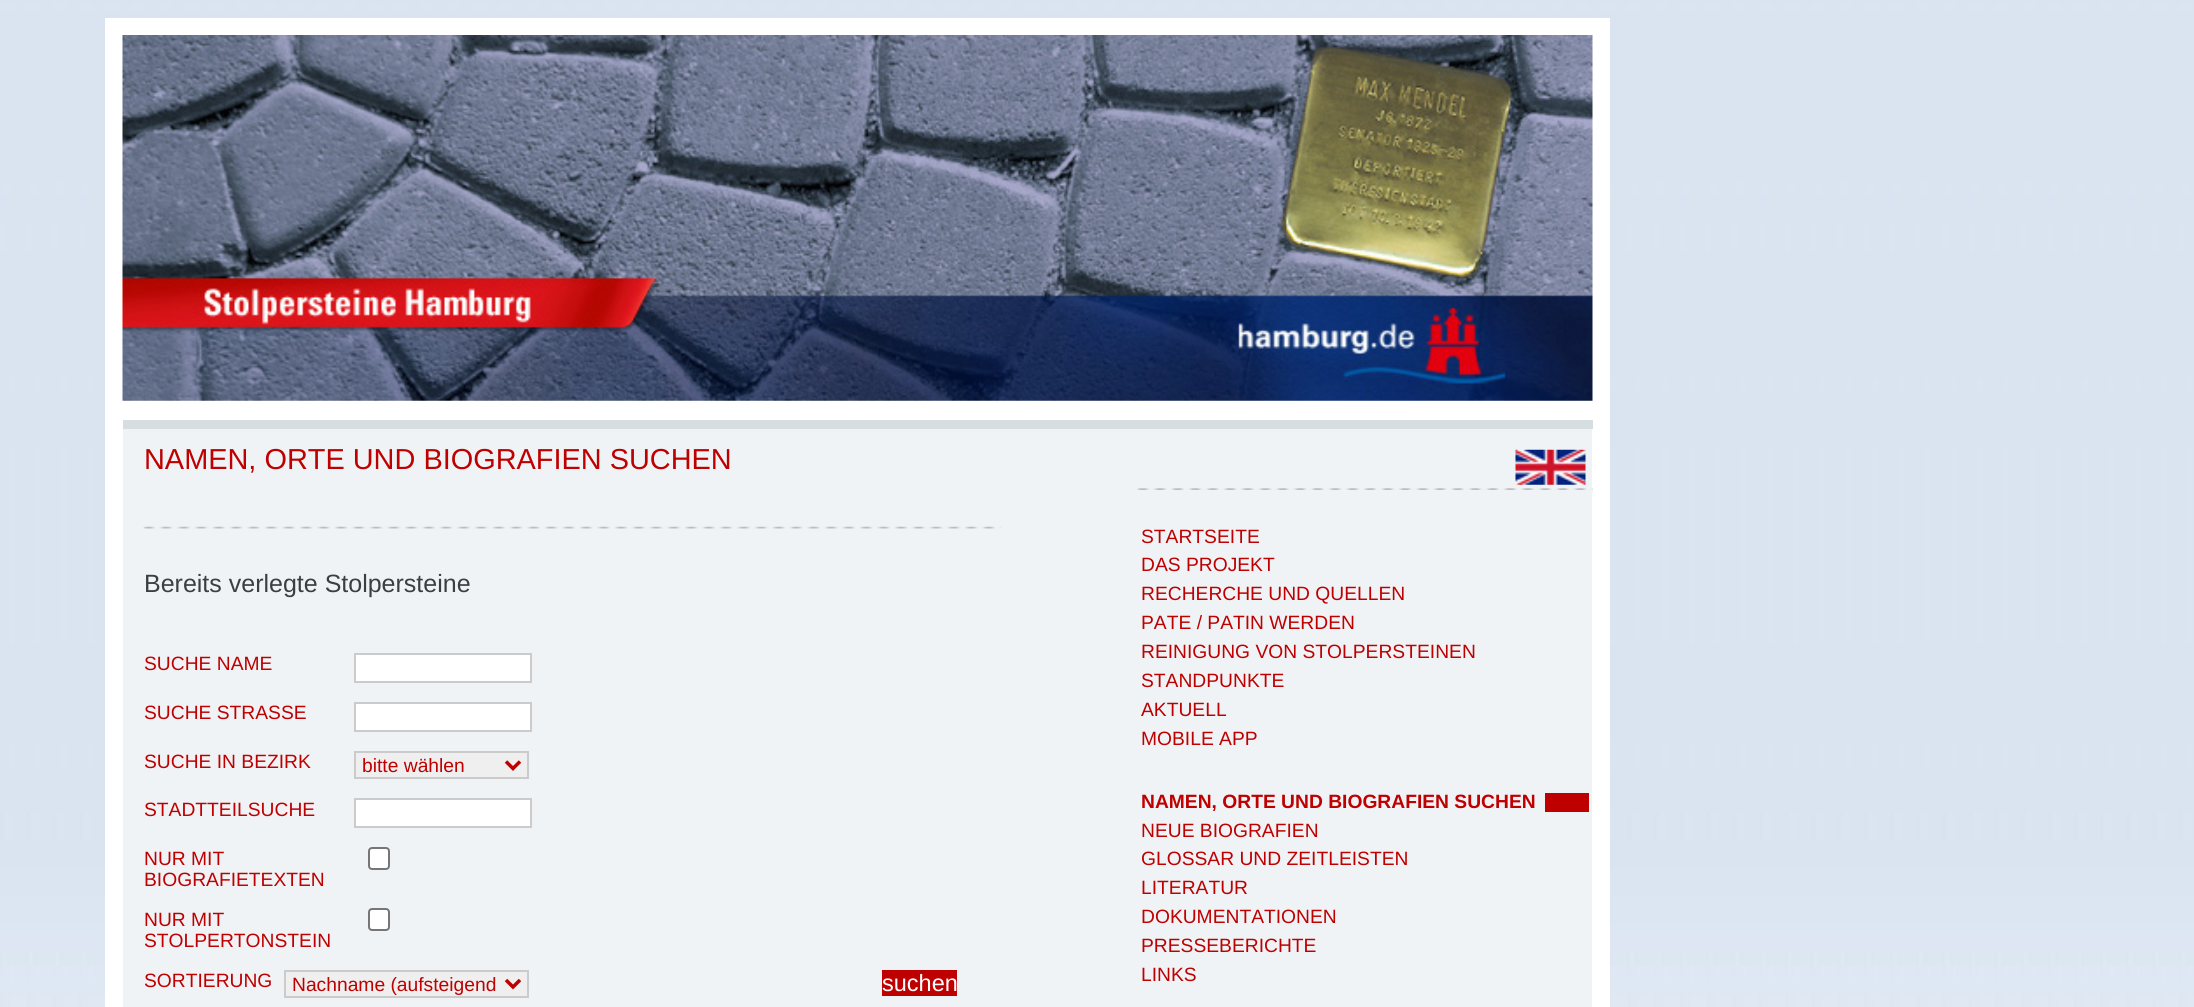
import math
import cairocffi as cairo

surface = cairo.ImageSurface(cairo.FORMAT_RGB24, 2194, 1007)
ctx = cairo.Context(surface)
options = cairo.FontOptions()
options.set_hint_metrics(cairo.HINT_METRICS_OFF)
options.set_hint_style(cairo.HINT_STYLE_NONE)
ctx.set_font_options(options)
ctx.set_miter_limit(4)


def rgb(r, g, b):
    ctx.set_source_rgb(r / 255, g / 255, b / 255)


def face(family, size, italic, bold):
    ctx.select_font_face(family, cairo.FONT_SLANT_ITALIC if italic else cairo.FONT_SLANT_NORMAL, cairo.FONT_WEIGHT_BOLD if bold else cairo.FONT_WEIGHT_NORMAL)
    ctx.set_font_size(size)


def label(x, y, s):
    ctx.move_to(x, y)
    ctx.show_text(s)


def rect(x, y, w, h):
    ctx.rectangle(x, y, w, h)
    ctx.fill()


def rrect(x, y, w, h, r):
    ctx.new_sub_path()
    for i, (u, v) in enumerate([(x + w - r, y + h - r), (x + r, y + h - r), (x + r, y + r), (x + w - r, y + r)]):
        ctx.arc(u, v, r, i * math.pi / 2, (i + 1) * math.pi / 2)
    ctx.close_path()


def image(path, x, y, w, h):
    ctx.save()
    ctx.set_source_surface(cairo.ImageSurface.create_from_png(path), x, y)
    ctx.rectangle(x, y, w, h)
    ctx.fill()
    ctx.restore()


rgb(255, 255, 255)
ctx.paint()
image('image0.png', 0, 0, 2194, 1007)
rgb(239, 243, 246)
rect(123, 429, 1469, 578)
ctx.rectangle(114, 27, 1487, 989)
rgb(255, 255, 255)
ctx.set_line_width(18)
ctx.stroke()
rect(123, 36, 1469, 384)
image('image1.png', 122, 35, 1471, 366)
rgb(214, 222, 225)
rect(123, 420, 1470, 9)
face('Liberation Sans', 28.9, 0, 0)
rgb(191, 0, 0)
label(144, 469, 'NAMEN, ORTE UND BIOGRAFIEN SUCHEN')
image('image2.png', 143, 526, 858, 3)
face('Liberation Sans', 25, 0, 0)
rgb(59, 63, 64)
label(144, 592, 'Bereits verlegte Stolpersteine')
face('Liberation Sans', 19.25, 0, 0)
rgb(191, 0, 0)
label(144, 670, 'SUCHE NAME')
rgb(255, 255, 255)
ctx.rectangle(355, 654, 176, 28)
ctx.fill_preserve()
rgb(203, 203, 203)
ctx.set_line_width(2)
ctx.stroke()
rgb(191, 0, 0)
label(144, 719, 'SUCHE STRASSE')
rgb(255, 255, 255)
ctx.rectangle(355, 703, 176, 28)
ctx.fill_preserve()
rgb(203, 203, 203)
ctx.stroke()
rgb(191, 0, 0)
label(144, 768, 'SUCHE IN BEZIRK')
rgb(239, 239, 239)
ctx.rectangle(355, 752, 173, 26)
ctx.fill_preserve()
rgb(203, 203, 203)
ctx.stroke()
ctx.new_path()
ctx.move_to(506, 761.5)
ctx.line_to(513, 768.5)
ctx.line_to(520, 761.5)
rgb(191, 0, 0)
ctx.set_line_width(3.5)
ctx.stroke()
label(362, 772, 'bitte wählen')
label(144, 816, 'STADTTEILSUCHE')
rgb(255, 255, 255)
ctx.rectangle(355, 799, 176, 28)
ctx.fill_preserve()
rgb(203, 203, 203)
ctx.set_line_width(2)
ctx.stroke()
rgb(191, 0, 0)
label(144, 865, 'NUR MIT')
label(144, 886, 'BIOGRAFIETEXTEN')
rgb(255, 255, 255)
rrect(369, 848, 20, 21, 3)
ctx.fill_preserve()
rgb(118, 118, 118)
ctx.stroke()
rgb(191, 0, 0)
label(144, 926, 'NUR MIT')
label(144, 947, 'STOLPERTONSTEIN')
rgb(255, 255, 255)
rrect(369, 909, 20, 21, 3)
ctx.fill_preserve()
rgb(118, 118, 118)
ctx.stroke()
rgb(191, 0, 0)
label(144, 987, 'SORTIERUNG')
rgb(239, 239, 239)
ctx.rectangle(285, 971, 243, 26)
ctx.fill_preserve()
rgb(203, 203, 203)
ctx.stroke()
ctx.new_path()
ctx.move_to(506, 980)
ctx.line_to(513, 987)
ctx.line_to(520, 980)
rgb(191, 0, 0)
ctx.set_line_width(3.5)
ctx.stroke()
label(292, 991, 'Nachname (aufsteigend')
rect(882, 970, 75, 26)
face('Liberation Sans', 23.5, 0, 0)
rgb(255, 255, 255)
label(882, 991, 'suchen')
image('image3.png', 1515, 449, 71, 36)
rgb(239, 243, 246)
rect(1592, 488, 1, 4)
image('image4.png', 1137, 488, 456, 2)
face('Liberation Sans', 19.25, 0, 0)
rgb(191, 0, 0)
label(1141, 543, 'STARTSEITE')
label(1141, 571, 'DAS PROJEKT')
label(1141, 600, 'RECHERCHE UND QUELLEN')
label(1141, 629, 'PATE / PATIN WERDEN')
label(1141, 658, 'REINIGUNG VON STOLPERSTEINEN')
label(1141, 687, 'STANDPUNKTE')
label(1141, 716, 'AKTUELL')
label(1141, 745, 'MOBILE APP')
rect(1545, 793, 44, 19)
face('Liberation Sans', 19.25, 0, 1)
label(1141, 808, 'NAMEN, ORTE UND BIOGRAFIEN SUCHEN')
face('Liberation Sans', 19.25, 0, 0)
label(1141, 837, 'NEUE BIOGRAFIEN')
label(1141, 865, 'GLOSSAR UND ZEITLEISTEN')
label(1141, 894, 'LITERATUR')
label(1141, 923, 'DOKUMENTATIONEN')
label(1141, 952, 'PRESSEBERICHTE')
label(1141, 981, 'LINKS')
surface.write_to_png('render.png')
